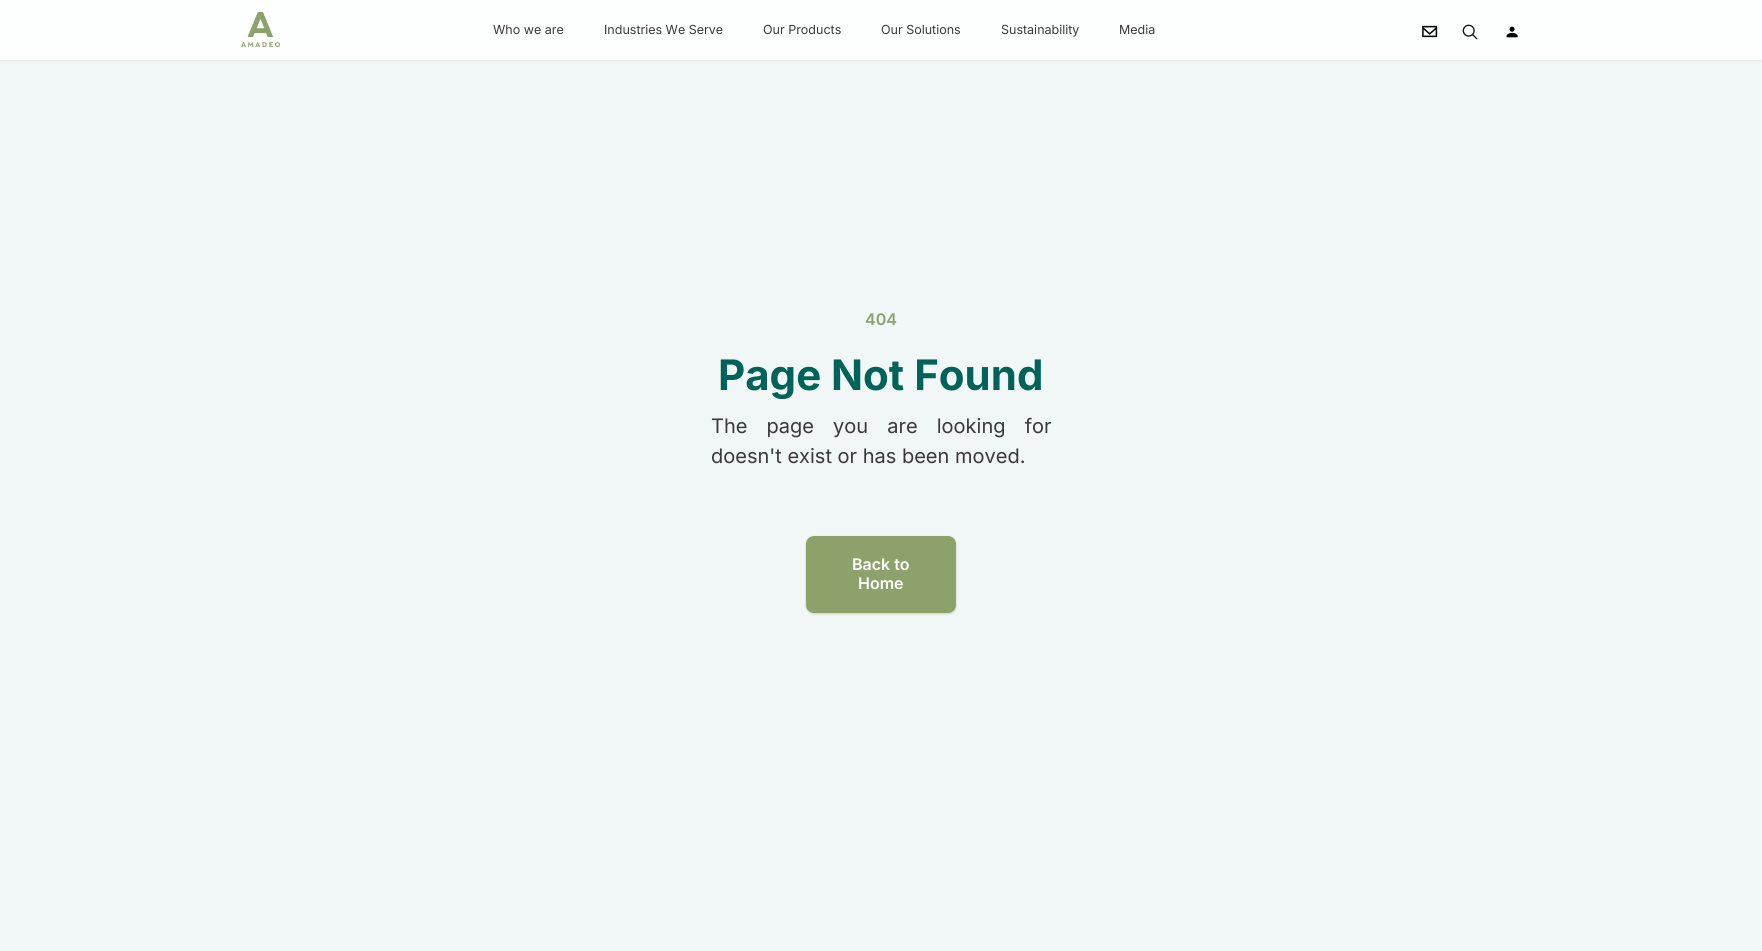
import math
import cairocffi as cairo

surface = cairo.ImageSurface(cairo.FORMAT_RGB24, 1762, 951)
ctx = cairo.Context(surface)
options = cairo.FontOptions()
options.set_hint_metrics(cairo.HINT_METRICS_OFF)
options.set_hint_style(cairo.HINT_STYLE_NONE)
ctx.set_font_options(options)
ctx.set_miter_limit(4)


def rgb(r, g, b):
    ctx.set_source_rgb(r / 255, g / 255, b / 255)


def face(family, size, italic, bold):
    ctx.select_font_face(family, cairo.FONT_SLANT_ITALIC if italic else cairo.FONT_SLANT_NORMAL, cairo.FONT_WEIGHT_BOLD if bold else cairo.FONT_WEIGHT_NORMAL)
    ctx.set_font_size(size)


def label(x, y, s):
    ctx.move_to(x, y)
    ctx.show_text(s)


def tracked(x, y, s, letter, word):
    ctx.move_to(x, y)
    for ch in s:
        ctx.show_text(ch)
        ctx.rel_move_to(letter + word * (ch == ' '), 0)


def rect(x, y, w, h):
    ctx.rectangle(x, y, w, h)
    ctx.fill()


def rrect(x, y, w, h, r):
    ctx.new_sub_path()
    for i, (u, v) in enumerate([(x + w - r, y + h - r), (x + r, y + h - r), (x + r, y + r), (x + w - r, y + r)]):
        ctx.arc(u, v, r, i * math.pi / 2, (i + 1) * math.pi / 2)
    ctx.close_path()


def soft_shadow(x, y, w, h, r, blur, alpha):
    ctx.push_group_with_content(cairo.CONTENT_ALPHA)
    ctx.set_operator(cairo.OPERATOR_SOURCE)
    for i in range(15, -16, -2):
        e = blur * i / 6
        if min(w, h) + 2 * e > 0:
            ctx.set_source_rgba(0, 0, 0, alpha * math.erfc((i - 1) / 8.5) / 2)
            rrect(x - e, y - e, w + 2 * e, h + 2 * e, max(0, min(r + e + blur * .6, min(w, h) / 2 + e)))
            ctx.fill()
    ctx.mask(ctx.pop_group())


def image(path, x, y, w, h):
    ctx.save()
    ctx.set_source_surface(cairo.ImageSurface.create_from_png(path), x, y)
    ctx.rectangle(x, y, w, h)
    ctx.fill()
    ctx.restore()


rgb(241, 246, 246)
ctx.paint()
rgb(3, 31, 40)
soft_shadow(0, 1, 1762, 60, 0, 1, 0.07)
rgb(253, 254, 254)
rect(0, 0, 1762, 60)
image('image0.png', 241, 12, 39, 35)
face('Inter', 12.5, 0, 0)
rgb(59, 57, 56)
label(493, 34, 'Who we are')
label(604, 34, 'Industries We Serve')
label(763, 34, 'Our Products')
label(881, 34, 'Our Solutions')
label(1001, 34, 'Sustainability')
label(1119, 34, 'Media')
image('image1.png', 1422, 25, 16, 13)
image('image2.png', 1462, 24, 16, 16)
image('image3.png', 1506, 26, 12, 12)
face('Inter SemiBold', 16, 0, 0)
rgb(141, 162, 106)
label(865, 325, '404')
face('Inter', 42, 0, 1)
rgb(0, 99, 89)
label(718, 390, 'Page Not Found')
face('Inter', 20, 0, 0)
rgb(59, 57, 56)
tracked(711, 433, 'The page you are looking for', 0, 13.5)
label(711, 463, 'doesn\'t exist or has been moved.')
rgb(141, 162, 106)
soft_shadow(806, 537, 150, 77, 8, 1, 0.42)
rgb(141, 162, 106)
rrect(806, 536, 150, 77, 8)
ctx.fill()
face('Inter SemiBold', 16, 0, 0)
rgb(255, 255, 255)
label(852, 570, 'Back to')
label(858, 589, 'Home')
surface.write_to_png('render.png')
